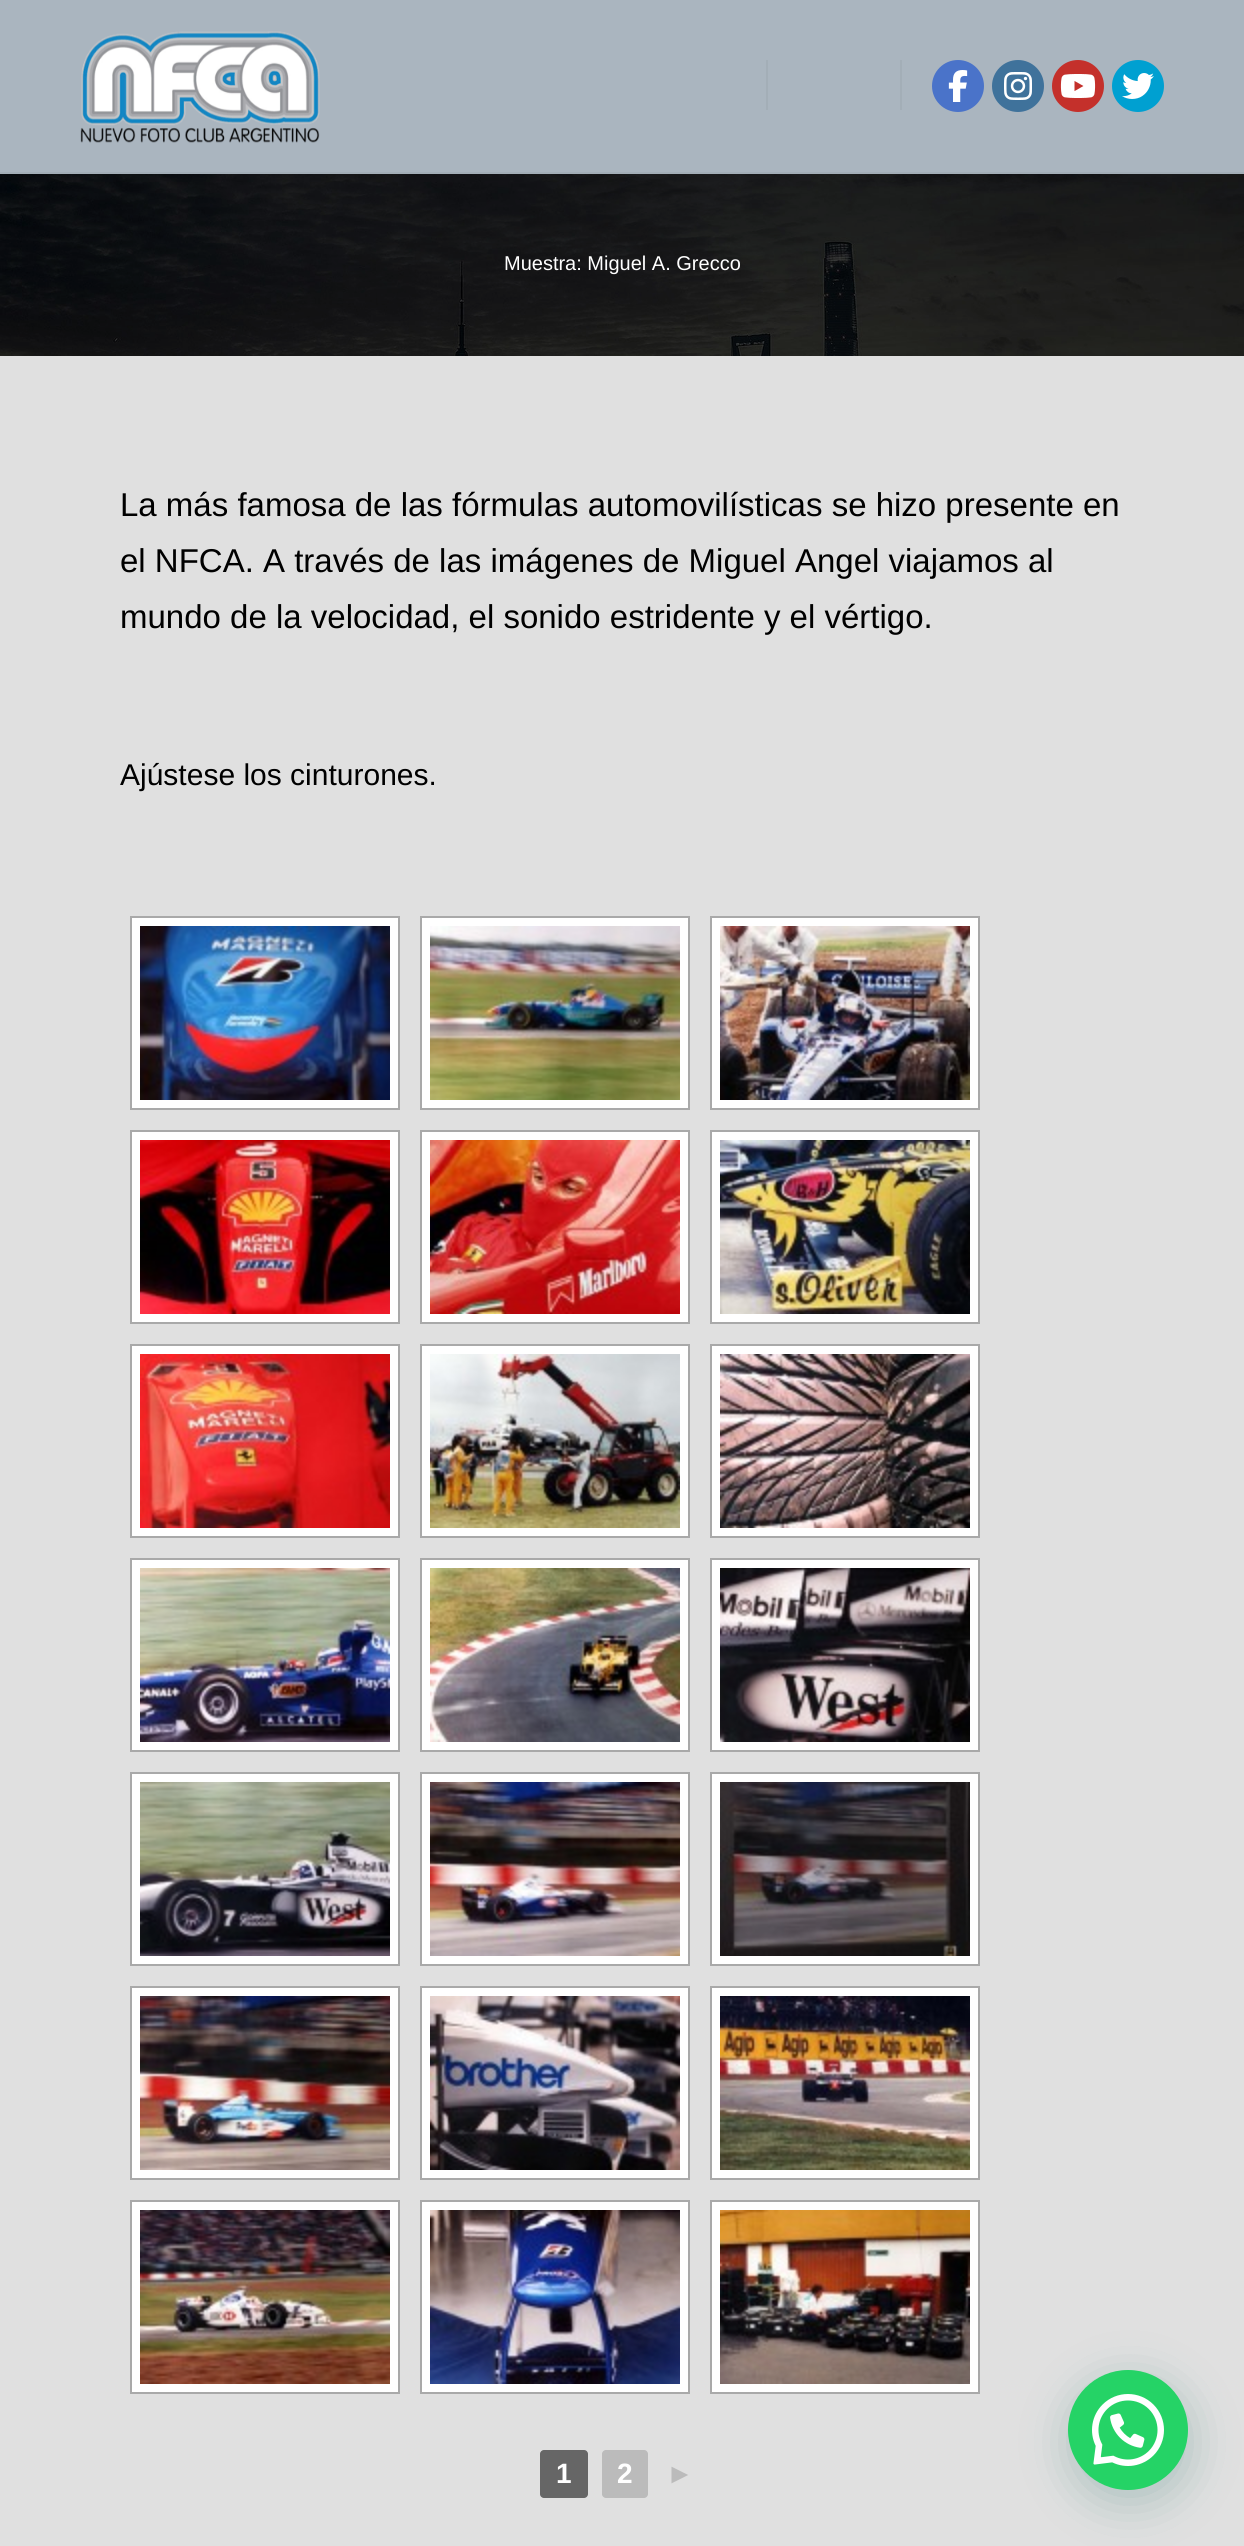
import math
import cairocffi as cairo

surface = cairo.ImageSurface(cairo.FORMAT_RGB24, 1244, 2546)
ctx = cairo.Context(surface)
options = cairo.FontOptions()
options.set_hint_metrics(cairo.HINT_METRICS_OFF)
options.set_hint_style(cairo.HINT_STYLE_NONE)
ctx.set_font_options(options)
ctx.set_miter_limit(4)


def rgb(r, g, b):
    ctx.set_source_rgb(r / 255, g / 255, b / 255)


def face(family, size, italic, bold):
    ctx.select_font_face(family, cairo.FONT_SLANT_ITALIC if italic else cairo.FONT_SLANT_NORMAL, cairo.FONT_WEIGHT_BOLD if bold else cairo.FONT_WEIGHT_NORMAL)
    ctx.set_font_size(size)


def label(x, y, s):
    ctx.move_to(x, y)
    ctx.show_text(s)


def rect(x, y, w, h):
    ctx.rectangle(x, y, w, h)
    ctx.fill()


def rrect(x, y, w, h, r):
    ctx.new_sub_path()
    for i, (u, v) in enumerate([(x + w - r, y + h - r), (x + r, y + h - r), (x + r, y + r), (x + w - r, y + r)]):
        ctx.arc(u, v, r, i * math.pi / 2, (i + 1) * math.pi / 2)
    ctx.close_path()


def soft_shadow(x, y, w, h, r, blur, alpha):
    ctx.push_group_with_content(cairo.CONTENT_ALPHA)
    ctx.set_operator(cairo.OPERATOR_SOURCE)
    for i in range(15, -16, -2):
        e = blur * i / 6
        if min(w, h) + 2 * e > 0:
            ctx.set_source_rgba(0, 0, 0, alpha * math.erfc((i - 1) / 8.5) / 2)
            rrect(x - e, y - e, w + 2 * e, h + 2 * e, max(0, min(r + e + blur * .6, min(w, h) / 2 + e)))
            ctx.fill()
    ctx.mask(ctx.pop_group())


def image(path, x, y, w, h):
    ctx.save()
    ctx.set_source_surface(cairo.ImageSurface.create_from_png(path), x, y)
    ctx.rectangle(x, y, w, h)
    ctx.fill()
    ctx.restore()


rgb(224, 224, 224)
ctx.paint()
rgb(170, 181, 191)
rect(0, 0, 1244, 172)
rgb(163, 174, 183)
rect(0, 172, 1244, 2)
image('image0.png', 80, 31, 240, 112)
rect(766, 60, 2, 50)
rect(900, 60, 2, 50)
rgb(74, 115, 201)
ctx.arc(958, 86, 26, 0, 2 * math.pi)
ctx.fill()
image('image1.png', 948, 70, 20, 32)
rgb(63, 114, 155)
ctx.arc(1018, 86, 26, 0, 2 * math.pi)
ctx.fill()
image('image2.png', 1004, 72, 28, 28)
rgb(196, 48, 43)
ctx.arc(1078, 86, 26, 0, 2 * math.pi)
ctx.fill()
image('image3.png', 1060, 74, 36, 24)
rgb(0, 160, 209)
ctx.arc(1138, 86, 26, 0, 2 * math.pi)
ctx.fill()
image('image4.png', 1122, 73, 32, 26)
image('image5.png', 0, 174, 1244, 182)
face('Liberation Sans', 20, 0, 0)
rgb(255, 255, 255)
label(504, 270, 'Muestra: Miguel A. Grecco')
face('Liberation Sans', 33, 0, 0)
rgb(0, 0, 0)
label(120, 516, 'La más famosa de las fórmulas automovilísticas se hizo presente en')
label(120, 572, 'el NFCA. A través de las imágenes de Miguel Angel viajamos al')
label(120, 628, 'mundo de la velocidad, el sonido estridente y el vértigo.')
face('Liberation Sans', 30, 0, 0)
label(120, 785, 'Ajústese los cinturones.')
rgb(255, 255, 255)
ctx.rectangle(131, 917, 268, 192)
ctx.fill_preserve()
rgb(169, 169, 169)
ctx.stroke()
image('image6.png', 140, 926, 250, 174)
rgb(255, 255, 255)
ctx.rectangle(421, 917, 268, 192)
ctx.fill_preserve()
rgb(169, 169, 169)
ctx.stroke()
image('image7.png', 430, 926, 250, 174)
rgb(255, 255, 255)
ctx.rectangle(711, 917, 268, 192)
ctx.fill_preserve()
rgb(169, 169, 169)
ctx.stroke()
image('image8.png', 720, 926, 250, 174)
rgb(255, 255, 255)
ctx.rectangle(131, 1131, 268, 192)
ctx.fill_preserve()
rgb(169, 169, 169)
ctx.stroke()
image('image9.png', 140, 1140, 250, 174)
rgb(255, 255, 255)
ctx.rectangle(421, 1131, 268, 192)
ctx.fill_preserve()
rgb(169, 169, 169)
ctx.stroke()
image('image10.png', 430, 1140, 250, 174)
rgb(255, 255, 255)
ctx.rectangle(711, 1131, 268, 192)
ctx.fill_preserve()
rgb(169, 169, 169)
ctx.stroke()
image('image11.png', 720, 1140, 250, 174)
rgb(255, 255, 255)
ctx.rectangle(131, 1345, 268, 192)
ctx.fill_preserve()
rgb(169, 169, 169)
ctx.stroke()
image('image12.png', 140, 1354, 250, 174)
rgb(255, 255, 255)
ctx.rectangle(421, 1345, 268, 192)
ctx.fill_preserve()
rgb(169, 169, 169)
ctx.stroke()
image('image13.png', 430, 1354, 250, 174)
rgb(255, 255, 255)
ctx.rectangle(711, 1345, 268, 192)
ctx.fill_preserve()
rgb(169, 169, 169)
ctx.stroke()
image('image14.png', 720, 1354, 250, 174)
rgb(255, 255, 255)
ctx.rectangle(131, 1559, 268, 192)
ctx.fill_preserve()
rgb(169, 169, 169)
ctx.stroke()
image('image15.png', 140, 1568, 250, 174)
rgb(255, 255, 255)
ctx.rectangle(421, 1559, 268, 192)
ctx.fill_preserve()
rgb(169, 169, 169)
ctx.stroke()
image('image16.png', 430, 1568, 250, 174)
rgb(255, 255, 255)
ctx.rectangle(711, 1559, 268, 192)
ctx.fill_preserve()
rgb(169, 169, 169)
ctx.stroke()
image('image17.png', 720, 1568, 250, 174)
rgb(255, 255, 255)
ctx.rectangle(131, 1773, 268, 192)
ctx.fill_preserve()
rgb(169, 169, 169)
ctx.stroke()
image('image18.png', 140, 1782, 250, 174)
rgb(255, 255, 255)
ctx.rectangle(421, 1773, 268, 192)
ctx.fill_preserve()
rgb(169, 169, 169)
ctx.stroke()
image('image19.png', 430, 1782, 250, 174)
rgb(255, 255, 255)
ctx.rectangle(711, 1773, 268, 192)
ctx.fill_preserve()
rgb(169, 169, 169)
ctx.stroke()
image('image20.png', 720, 1782, 250, 174)
rgb(255, 255, 255)
ctx.rectangle(131, 1987, 268, 192)
ctx.fill_preserve()
rgb(169, 169, 169)
ctx.stroke()
image('image21.png', 140, 1996, 250, 174)
rgb(255, 255, 255)
ctx.rectangle(421, 1987, 268, 192)
ctx.fill_preserve()
rgb(169, 169, 169)
ctx.stroke()
image('image22.png', 430, 1996, 250, 174)
rgb(255, 255, 255)
ctx.rectangle(711, 1987, 268, 192)
ctx.fill_preserve()
rgb(169, 169, 169)
ctx.stroke()
image('image23.png', 720, 1996, 250, 174)
rgb(255, 255, 255)
ctx.rectangle(131, 2201, 268, 192)
ctx.fill_preserve()
rgb(169, 169, 169)
ctx.stroke()
image('image24.png', 140, 2210, 250, 174)
rgb(255, 255, 255)
ctx.rectangle(421, 2201, 268, 192)
ctx.fill_preserve()
rgb(169, 169, 169)
ctx.stroke()
image('image25.png', 430, 2210, 250, 174)
rgb(255, 255, 255)
ctx.rectangle(711, 2201, 268, 192)
ctx.fill_preserve()
rgb(169, 169, 169)
ctx.stroke()
image('image26.png', 720, 2210, 250, 174)
rgb(102, 102, 102)
rrect(540, 2450, 48, 48, 4)
ctx.fill()
face('Liberation Sans', 28, 0, 1)
rgb(255, 255, 255)
label(556, 2483, '1')
rgb(187, 187, 187)
rrect(602, 2450, 46, 48, 4)
ctx.fill()
rgb(255, 255, 255)
label(617, 2483, '2')
rgb(187, 187, 187)
label(666, 2483, '►')
rgb(7, 94, 84)
soft_shadow(1070, 2382, 120, 120, 60, 24, 0.24)
rgb(37, 211, 102)
ctx.arc(1128, 2430, 60, 0, 2 * math.pi)
ctx.fill()
image('image27.png', 1092, 2394, 72, 72)
surface.write_to_png('render.png')
